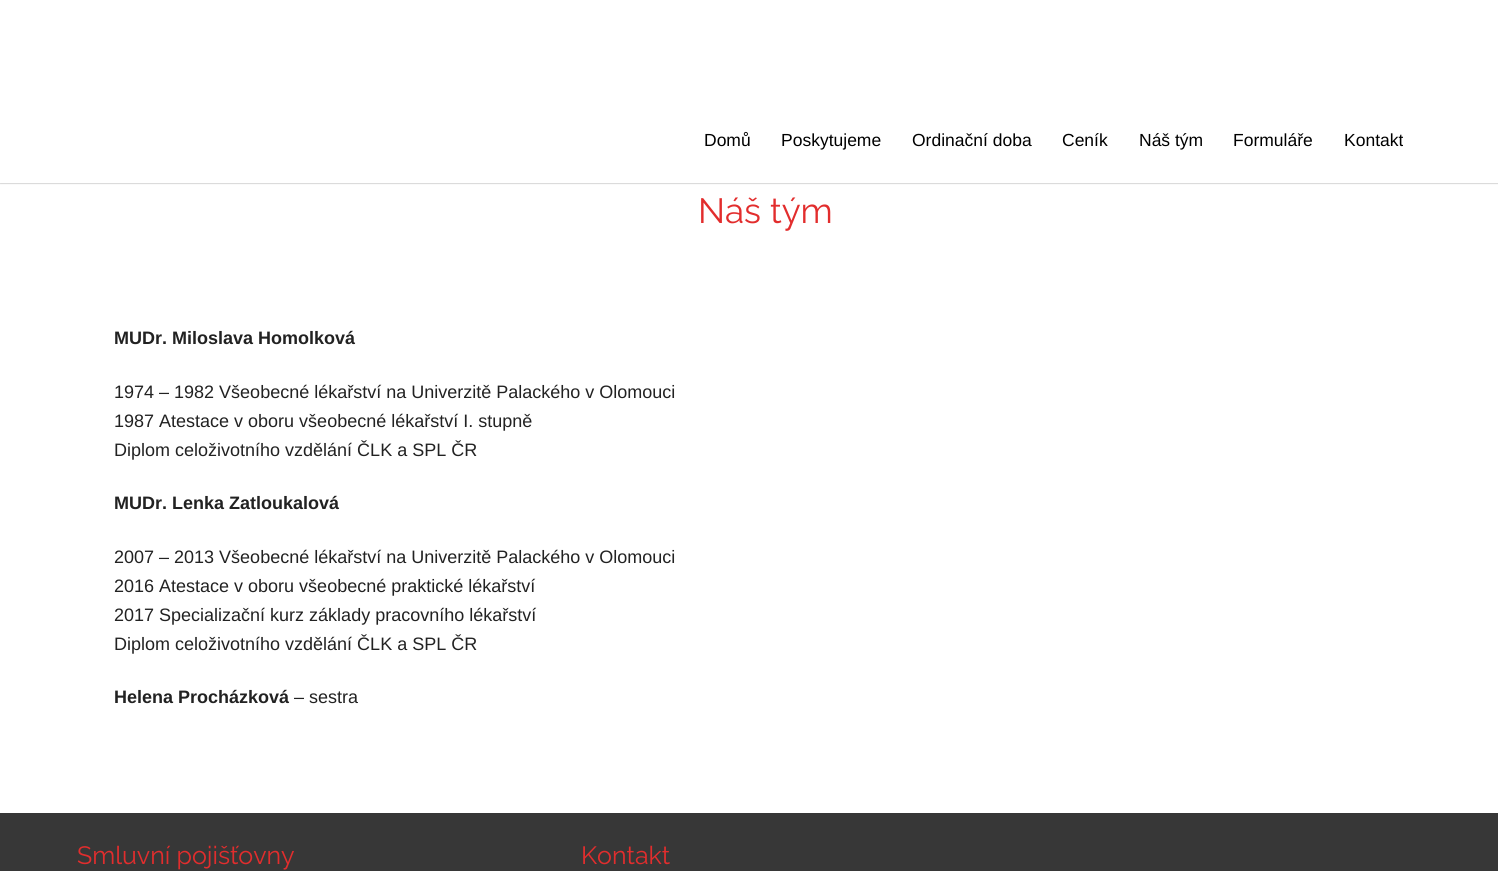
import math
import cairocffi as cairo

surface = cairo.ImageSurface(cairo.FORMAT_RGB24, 1498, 871)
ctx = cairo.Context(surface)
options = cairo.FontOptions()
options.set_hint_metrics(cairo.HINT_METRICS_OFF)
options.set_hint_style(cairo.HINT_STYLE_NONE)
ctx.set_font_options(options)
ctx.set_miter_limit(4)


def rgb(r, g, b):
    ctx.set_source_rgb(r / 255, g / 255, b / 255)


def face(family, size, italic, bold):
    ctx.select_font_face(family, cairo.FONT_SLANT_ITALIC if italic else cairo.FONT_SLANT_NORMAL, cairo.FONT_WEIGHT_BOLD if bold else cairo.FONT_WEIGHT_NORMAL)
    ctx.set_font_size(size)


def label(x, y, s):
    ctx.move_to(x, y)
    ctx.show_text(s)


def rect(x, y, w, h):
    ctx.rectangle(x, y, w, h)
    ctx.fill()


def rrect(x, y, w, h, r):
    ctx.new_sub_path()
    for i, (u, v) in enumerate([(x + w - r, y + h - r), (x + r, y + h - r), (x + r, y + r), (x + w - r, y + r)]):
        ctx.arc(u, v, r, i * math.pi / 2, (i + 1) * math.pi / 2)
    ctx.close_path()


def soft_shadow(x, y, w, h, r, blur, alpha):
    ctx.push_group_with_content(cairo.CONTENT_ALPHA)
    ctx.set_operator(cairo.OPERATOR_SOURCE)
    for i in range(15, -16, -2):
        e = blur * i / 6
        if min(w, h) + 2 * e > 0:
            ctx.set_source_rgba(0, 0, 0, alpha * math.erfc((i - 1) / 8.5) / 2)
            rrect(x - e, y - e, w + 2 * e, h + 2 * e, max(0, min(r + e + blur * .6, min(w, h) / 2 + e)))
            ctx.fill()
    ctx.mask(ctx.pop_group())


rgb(255, 255, 255)
ctx.paint()
rgb(240, 240, 240)
ctx.new_path()
ctx.move_to(0, 182)
ctx.line_to(0, 184)
ctx.line_to(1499, 184)
ctx.line_to(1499, 1)
ctx.line_to(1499, 182)
ctx.close_path()
ctx.fill()
rgb(0, 0, 0)
soft_shadow(0, 1, 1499, 183, 0, 0.5, 0.1)
rgb(255, 255, 255)
rect(0, 0, 1498, 183)
face('Liberation Sans', 17.5, 0, 0)
rgb(0, 0, 0)
label(704, 146, 'Domů')
label(781, 146, 'Poskytujeme')
label(912, 146, 'Ordinační doba')
label(1062, 146, 'Ceník')
label(1139, 146, 'Náš tým')
label(1233, 146, 'Formuláře')
label(1344, 146, 'Kontakt')
face('Raleway Thin', 35, 0, 0)
rgb(226, 45, 45)
label(698, 223, 'Náš tým')
face('Liberation Sans', 18, 0, 1)
rgb(34, 34, 34)
label(114, 344, 'MUDr. Miloslava Homolková')
face('Liberation Sans', 18, 0, 0)
label(114, 398, '1974 – 1982 Všeobecné lékařství na Univerzitě Palackého v Olomouci')
label(114, 427, '1987 Atestace v oboru všeobecné lékařství I. stupně')
label(114, 456, 'Diplom celoživotního vzdělání ČLK a SPL ČR')
face('Liberation Sans', 18, 0, 1)
label(114, 509, 'MUDr. Lenka Zatloukalová')
face('Liberation Sans', 18, 0, 0)
label(114, 563, '2007 – 2013 Všeobecné lékařství na Univerzitě Palackého v Olomouci')
label(114, 592, '2016 Atestace v oboru všeobecné praktické lékařství')
label(114, 621, '2017 Specializační kurz základy pracovního lékařství')
label(114, 650, 'Diplom celoživotního vzdělání ČLK a SPL ČR')
face('Liberation Sans', 18, 0, 1)
label(114, 703, 'Helena Procházková')
face('Liberation Sans', 18, 0, 0)
label(294, 703, '– sestra')
rgb(55, 55, 55)
rect(0, 813, 1498, 58)
face('Raleway Thin', 25, 0, 0)
rgb(226, 45, 45)
label(77, 864, 'Smluvní pojišťovny')
label(581, 864, 'Kontakt')
surface.write_to_png('render.png')
